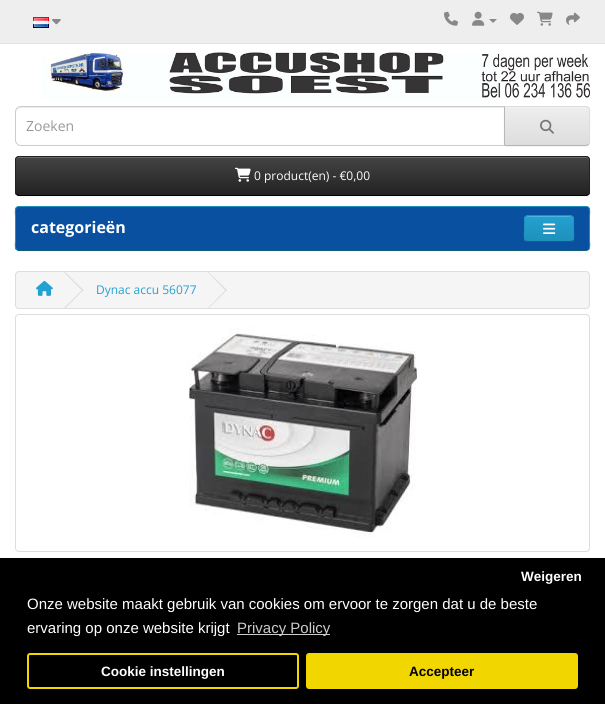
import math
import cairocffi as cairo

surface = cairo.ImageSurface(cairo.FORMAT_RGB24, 605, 704)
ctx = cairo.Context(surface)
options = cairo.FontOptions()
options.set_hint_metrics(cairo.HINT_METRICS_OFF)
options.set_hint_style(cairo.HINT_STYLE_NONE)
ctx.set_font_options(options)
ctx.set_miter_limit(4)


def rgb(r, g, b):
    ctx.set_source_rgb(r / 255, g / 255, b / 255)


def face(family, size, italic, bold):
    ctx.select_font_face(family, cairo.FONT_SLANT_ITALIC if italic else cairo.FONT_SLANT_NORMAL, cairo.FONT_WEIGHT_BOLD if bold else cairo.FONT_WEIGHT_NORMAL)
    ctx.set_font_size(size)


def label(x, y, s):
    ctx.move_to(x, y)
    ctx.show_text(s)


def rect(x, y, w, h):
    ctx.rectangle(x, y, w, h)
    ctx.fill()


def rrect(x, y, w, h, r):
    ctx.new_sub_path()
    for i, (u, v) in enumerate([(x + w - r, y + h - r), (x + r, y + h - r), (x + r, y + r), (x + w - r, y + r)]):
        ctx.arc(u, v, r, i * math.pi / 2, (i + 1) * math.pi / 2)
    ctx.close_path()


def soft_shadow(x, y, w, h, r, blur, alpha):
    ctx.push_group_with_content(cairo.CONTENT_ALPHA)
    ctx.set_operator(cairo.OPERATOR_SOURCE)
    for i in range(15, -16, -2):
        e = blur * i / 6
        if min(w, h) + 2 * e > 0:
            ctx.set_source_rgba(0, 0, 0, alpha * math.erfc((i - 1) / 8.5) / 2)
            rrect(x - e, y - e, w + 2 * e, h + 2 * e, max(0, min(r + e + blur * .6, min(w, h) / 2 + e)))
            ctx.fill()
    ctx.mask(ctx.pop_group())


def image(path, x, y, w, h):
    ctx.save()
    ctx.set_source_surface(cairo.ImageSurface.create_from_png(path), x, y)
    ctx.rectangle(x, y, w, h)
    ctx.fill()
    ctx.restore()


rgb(255, 255, 255)
ctx.paint()
rgb(238, 238, 238)
rect(0, 0, 605, 43)
rgb(226, 226, 226)
rect(0, 43, 605, 1)
image('image0.png', 33, 17, 16, 11)
image('image1.png', 52, 19, 9, 6)
image('image2.png', 444, 11, 14, 15)
image('image3.png', 472, 11, 13, 15)
rgb(136, 136, 136)
ctx.new_path()
ctx.move_to(489, 19)
ctx.line_to(497, 19)
ctx.line_to(493, 23)
ctx.close_path()
ctx.fill()
image('image4.png', 510, 12, 14, 13)
image('image5.png', 537, 11, 16, 15)
image('image6.png', 566, 12, 14, 13)
image('image7.png', 42, 49, 548, 52)
rgb(236, 236, 236)
ctx.new_path()
ctx.move_to(21, 108)
ctx.line_to(504, 108)
ctx.line_to(504, 107)
ctx.line_to(21, 107)
ctx.curve_to(18, 107, 16, 109, 16, 112)
ctx.line_to(16, 113)
ctx.curve_to(16, 110, 18, 108, 21, 108)
ctx.close_path()
ctx.fill()
ctx.new_path()
ctx.move_to(21, 106.5)
ctx.line_to(504.5, 106.5)
ctx.line_to(504.5, 145.5)
ctx.line_to(21, 145.5)
ctx.curve_to(18, 145.5, 15.5, 143, 15.5, 140)
ctx.line_to(15.5, 112)
ctx.curve_to(15.5, 109, 18, 106.5, 21, 106.5)
ctx.close_path()
rgb(204, 204, 204)
ctx.set_line_width(1)
ctx.stroke()
face('Open Sans', 14, 0, 0)
rgb(153, 153, 153)
label(26, 131, 'Zoeken')
rgb(0, 0, 0)
soft_shadow(504, 107, 86, 40, 4, 1, 0.05)
rgb(231, 231, 231)
ctx.new_path()
ctx.move_to(504, 106)
ctx.line_to(586, 106)
ctx.curve_to(588, 106, 590, 108, 590, 110)
ctx.line_to(590, 142)
ctx.curve_to(590, 144, 588, 146, 586, 146)
ctx.line_to(504, 146)
ctx.close_path()
ctx.fill()
ctx.save()
ctx.new_path()
ctx.move_to(504, 106)
ctx.line_to(586, 106)
ctx.curve_to(588, 106, 590, 108, 590, 110)
ctx.line_to(590, 142)
ctx.curve_to(590, 144, 588, 146, 586, 146)
ctx.line_to(504, 146)
ctx.close_path()
ctx.clip()
gradient = cairo.LinearGradient(547, 107, 547, 145)
gradient.add_color_stop_rgba(0, 0.933, 0.933, 0.933, 1)
gradient.add_color_stop_rgba(1, 0.867, 0.867, 0.867, 1)
ctx.set_source(gradient)
rect(505, 107, 85, 38)
ctx.restore()
rgb(241, 241, 241)
ctx.new_path()
ctx.move_to(505, 108)
ctx.line_to(586, 108)
ctx.curve_to(588, 108, 589, 109, 589, 111)
ctx.line_to(589, 110)
ctx.curve_to(589, 108, 588, 107, 586, 107)
ctx.line_to(505, 107)
ctx.close_path()
ctx.fill()
rgb(221, 221, 221)
ctx.new_path()
ctx.move_to(504, 106)
ctx.line_to(505, 107)
ctx.line_to(586, 107)
ctx.line_to(588, 108)
ctx.line_to(589, 107)
ctx.line_to(586, 106)
ctx.close_path()
ctx.fill()
ctx.new_path()
ctx.move_to(590, 142)
ctx.line_to(590, 110)
ctx.curve_to(590, 109, 589.5, 108, 589, 107)
ctx.line_to(588, 108)
ctx.curve_to(589, 108, 589, 109, 589, 110)
ctx.line_to(589, 142)
ctx.curve_to(589, 143, 589, 144, 588, 144)
ctx.line_to(589, 145)
ctx.curve_to(589.5, 144, 590, 143, 590, 142)
ctx.close_path()
ctx.fill()
rgb(179, 179, 179)
ctx.new_path()
ctx.move_to(586, 146)
ctx.line_to(589, 145)
ctx.line_to(588, 144)
ctx.line_to(586, 145)
ctx.line_to(505, 145)
ctx.line_to(504, 146)
ctx.close_path()
ctx.fill()
rgb(183, 183, 183)
ctx.new_path()
ctx.move_to(504, 106)
ctx.line_to(504, 146)
ctx.line_to(505, 145)
ctx.line_to(505, 107)
ctx.close_path()
ctx.fill()
image('image8.png', 540, 119, 14, 15)
rgb(0, 0, 0)
soft_shadow(15, 157, 575, 40, 4, 1, 0.05)
rgb(54, 54, 54)
rrect(15, 156, 575, 40, 4)
ctx.fill()
ctx.save()
rrect(15, 156, 575, 40, 4)
ctx.clip()
gradient = cairo.LinearGradient(303, 157, 303, 195)
gradient.add_color_stop_rgba(0, 0.267, 0.267, 0.267, 1)
gradient.add_color_stop_rgba(1, 0.133, 0.133, 0.133, 1)
ctx.set_source(gradient)
rect(15, 157, 575, 38)
ctx.restore()
rgb(105, 105, 105)
ctx.new_path()
ctx.move_to(19, 158)
ctx.line_to(586, 158)
ctx.curve_to(588, 158, 589, 159, 589, 161)
ctx.line_to(589, 160)
ctx.curve_to(589, 158, 588, 157, 586, 157)
ctx.line_to(19, 157)
ctx.curve_to(17, 157, 16, 158, 16, 160)
ctx.line_to(16, 161)
ctx.curve_to(16, 159, 17, 158, 19, 158)
ctx.close_path()
ctx.fill()
ctx.new_path()
ctx.move_to(588.5, 194.5)
ctx.line_to(586, 195.5)
ctx.line_to(19, 195.5)
ctx.line_to(16.5, 194.5)
rgb(0, 0, 0)
ctx.stroke()
ctx.new_path()
ctx.move_to(16.5, 194.5)
ctx.curve_to(16, 194, 15.5, 193, 15.5, 192)
ctx.line_to(15.5, 160)
ctx.curve_to(15.5, 159, 16, 158, 16.5, 157.5)
ctx.curve_to(17, 157, 18, 156.5, 19, 156.5)
ctx.line_to(586, 156.5)
ctx.curve_to(587, 156.5, 588, 157, 588.5, 157.5)
ctx.curve_to(589, 158, 589.5, 159, 589.5, 160)
ctx.line_to(589.5, 192)
ctx.curve_to(589.5, 193, 589, 194, 588.5, 194.5)
rgb(34, 34, 34)
ctx.stroke()
image('image9.png', 235, 167, 16, 15)
face('Open Sans', 12, 0, 0)
rgb(255, 255, 255)
label(254, 180, '0 product(en) - €0,00')
rgb(34, 154, 200)
rrect(15, 206, 575, 45, 4)
ctx.fill()
ctx.save()
rrect(15, 206, 575, 45, 4)
ctx.clip()
rgb(9, 80, 160)
rect(15, 207, 575, 43)
ctx.restore()
ctx.new_path()
ctx.move_to(588.5, 249.5)
ctx.line_to(586, 250.5)
ctx.line_to(19, 250.5)
ctx.line_to(16.5, 249.5)
rgb(20, 94, 122)
ctx.stroke()
ctx.new_path()
ctx.move_to(16.5, 249.5)
ctx.curve_to(14.5, 247.5, 15.5, 242.5, 15.5, 241)
ctx.line_to(15.5, 216)
ctx.curve_to(15.5, 213.5, 14, 206.5, 19, 206.5)
ctx.line_to(586, 206.5)
ctx.curve_to(591, 206.5, 589.5, 213.5, 589.5, 216)
ctx.line_to(589.5, 241)
ctx.curve_to(589.5, 242.5, 590.5, 247.5, 588.5, 249.5)
rgb(31, 144, 187)
ctx.stroke()
face('Open Sans', 16, 0, 1)
rgb(255, 255, 255)
label(31, 233, 'categorieën')
rgb(34, 154, 200)
rrect(524, 215, 50, 27, 4)
ctx.fill()
ctx.save()
rrect(524, 215, 50, 27, 4)
ctx.clip()
gradient = cairo.LinearGradient(549, 216, 549, 241)
gradient.add_color_stop_rgba(0, 0.137, 0.631, 0.82, 1)
gradient.add_color_stop_rgba(1, 0.122, 0.565, 0.733, 1)
ctx.set_source(gradient)
rect(524, 216, 50, 25)
ctx.restore()
rgb(79, 180, 218)
ctx.new_path()
ctx.move_to(528, 217)
ctx.line_to(570, 217)
ctx.curve_to(572, 217, 573, 218, 573, 220)
ctx.curve_to(573, 214, 567, 216, 563, 216)
ctx.line_to(535, 216)
ctx.curve_to(531, 216, 525, 214, 525, 220)
ctx.curve_to(525, 218, 526, 217, 528, 217)
ctx.close_path()
ctx.fill()
ctx.new_path()
ctx.move_to(572.5, 240.5)
ctx.curve_to(572, 241, 571, 241.5, 570, 241.5)
ctx.line_to(528, 241.5)
ctx.curve_to(527, 241.5, 526, 241, 525.5, 240.5)
rgb(20, 94, 122)
ctx.stroke()
ctx.new_path()
ctx.move_to(525.5, 240.5)
ctx.curve_to(523.5, 238.5, 524.5, 231, 524.5, 228.5)
ctx.curve_to(524.5, 215.5, 522.5, 215.5, 535, 215.5)
ctx.line_to(563, 215.5)
ctx.curve_to(575.5, 215.5, 573.5, 215.5, 573.5, 228.5)
ctx.curve_to(573.5, 231, 574.5, 238.5, 572.5, 240.5)
rgb(31, 144, 187)
ctx.stroke()
image('image10.png', 543, 223, 13, 11)
rgb(245, 245, 245)
rrect(15.5, 271.5, 574, 37, 3.5)
ctx.fill_preserve()
rgb(221, 221, 221)
ctx.stroke()
image('image11.png', 36, 280, 17, 16)
ctx.new_path()
ctx.move_to(64, 272.5)
ctx.line_to(65, 272)
ctx.line_to(83.5, 290)
ctx.line_to(82.5, 291)
ctx.close_path()
ctx.fill()
ctx.new_path()
ctx.move_to(64, 308)
ctx.line_to(82.5, 289.5)
ctx.line_to(83.5, 290)
ctx.line_to(65, 308.5)
ctx.close_path()
ctx.fill()
face('Open Sans', 12, 0, 0)
rgb(35, 161, 209)
label(96, 294, 'Dynac accu 56077')
rgb(221, 221, 221)
ctx.new_path()
ctx.move_to(208, 272.5)
ctx.line_to(208.5, 272)
ctx.line_to(227, 290)
ctx.line_to(226, 291)
ctx.close_path()
ctx.fill()
ctx.new_path()
ctx.move_to(208, 308)
ctx.line_to(226, 289.5)
ctx.line_to(227, 290)
ctx.line_to(208.5, 308.5)
ctx.close_path()
ctx.fill()
rrect(15.5, 314.5, 574, 237, 3.5)
ctx.stroke()
image('image12.png', 189, 327, 228, 211)
rgb(0, 0, 0)
rect(0, 558, 605, 146)
face('Liberation Sans', 13.5, 0, 1)
rgb(255, 255, 255)
label(521, 581, 'Weigeren')
rrect(28, 654, 270, 34, 2)
rgb(241, 214, 0)
ctx.set_line_width(2)
ctx.stroke()
rgb(255, 255, 255)
label(101, 676, 'Cookie instellingen')
rgb(241, 214, 0)
rrect(306, 653, 272, 36, 3)
ctx.fill()
rgb(0, 0, 0)
label(409, 676, 'Accepteer')
face('Liberation Sans', 15, 0, 0)
rgb(255, 255, 255)
label(27, 609, 'Onze website maakt gebruik van cookies om ervoor te zorgen dat u de beste')
label(27, 633, 'ervaring op onze website krijgt')
rgb(204, 204, 204)
rect(237, 634, 93, 1)
label(237, 633, 'Privacy Policy')
surface.write_to_png('render.png')
